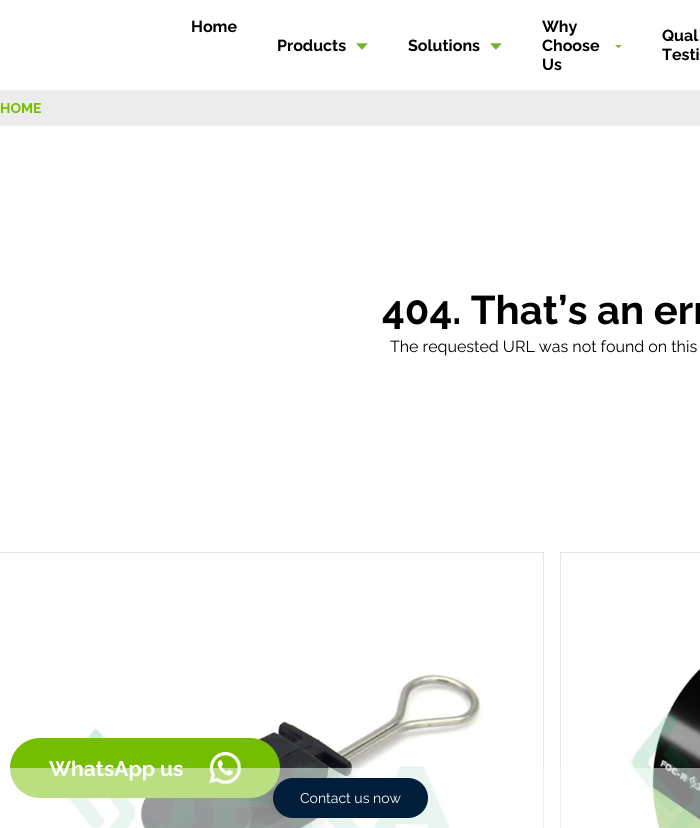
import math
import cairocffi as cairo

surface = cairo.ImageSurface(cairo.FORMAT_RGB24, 700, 828)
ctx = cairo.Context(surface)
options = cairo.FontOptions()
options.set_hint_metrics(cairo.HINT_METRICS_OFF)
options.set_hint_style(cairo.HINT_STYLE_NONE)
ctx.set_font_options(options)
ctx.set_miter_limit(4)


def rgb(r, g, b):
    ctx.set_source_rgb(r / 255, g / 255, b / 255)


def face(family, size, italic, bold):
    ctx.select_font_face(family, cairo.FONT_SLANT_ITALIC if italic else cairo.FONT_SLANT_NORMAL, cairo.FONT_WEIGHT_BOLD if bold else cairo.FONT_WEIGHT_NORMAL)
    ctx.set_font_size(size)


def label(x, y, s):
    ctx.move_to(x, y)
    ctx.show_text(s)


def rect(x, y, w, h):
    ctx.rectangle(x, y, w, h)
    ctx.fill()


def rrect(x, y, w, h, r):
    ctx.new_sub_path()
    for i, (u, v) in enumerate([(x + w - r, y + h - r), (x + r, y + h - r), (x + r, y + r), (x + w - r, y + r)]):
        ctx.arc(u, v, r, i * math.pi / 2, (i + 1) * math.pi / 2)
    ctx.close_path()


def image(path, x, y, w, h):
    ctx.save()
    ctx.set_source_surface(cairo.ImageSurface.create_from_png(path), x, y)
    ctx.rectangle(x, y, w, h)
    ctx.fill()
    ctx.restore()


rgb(255, 255, 255)
ctx.paint()
face('Raleway', 16, 0, 1)
rgb(0, 0, 0)
label(191, 32, 'Home')
label(277, 51, 'Products')
image('image0.png', 356, 43, 12, 7)
label(408, 51, 'Solutions')
image('image0.png', 490, 43, 12, 7)
label(542, 32, 'Why')
label(542, 51, 'Choose')
label(542, 70, 'Us')
image('image1.png', 615, 45, 7, 3)
label(662, 41, 'Qual')
label(662, 60, 'Testi')
rgb(236, 236, 236)
rect(0, 90, 700, 36)
face('Raleway', 14, 0, 1)
rgb(116, 189, 0)
label(0, 113, 'HOME')
face('Raleway', 40, 0, 1)
rgb(0, 0, 0)
label(382, 324, '404. That’s an err')
face('Raleway', 16, 0, 0)
label(390, 352, 'The requested URL was not found on this')
ctx.rectangle(-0.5, 552.5, 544, 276)
rgb(229, 229, 229)
ctx.set_line_width(1)
ctx.stroke()
image('image2.png', 55, 673, 428, 155)
ctx.rectangle(560.5, 552.5, 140, 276)
ctx.stroke()
image('image3.png', 629, 667, 71, 161)
rgb(116, 189, 0)
rrect(10, 738, 270, 60, 30)
ctx.fill()
face('Raleway', 21, 0, 1)
rgb(255, 255, 255)
label(49, 776, 'WhatsApp us')
image('image4.png', 209, 752, 32, 32)
ctx.set_source_rgba(1, 1, 1, 0.5)
rect(10, 768, 690, 60)
rgb(0, 30, 58)
rrect(273, 778, 155, 40, 20)
ctx.fill()
face('Raleway', 14, 0, 0)
rgb(255, 255, 255)
label(300, 803, 'Contact us now')
surface.write_to_png('render.png')
